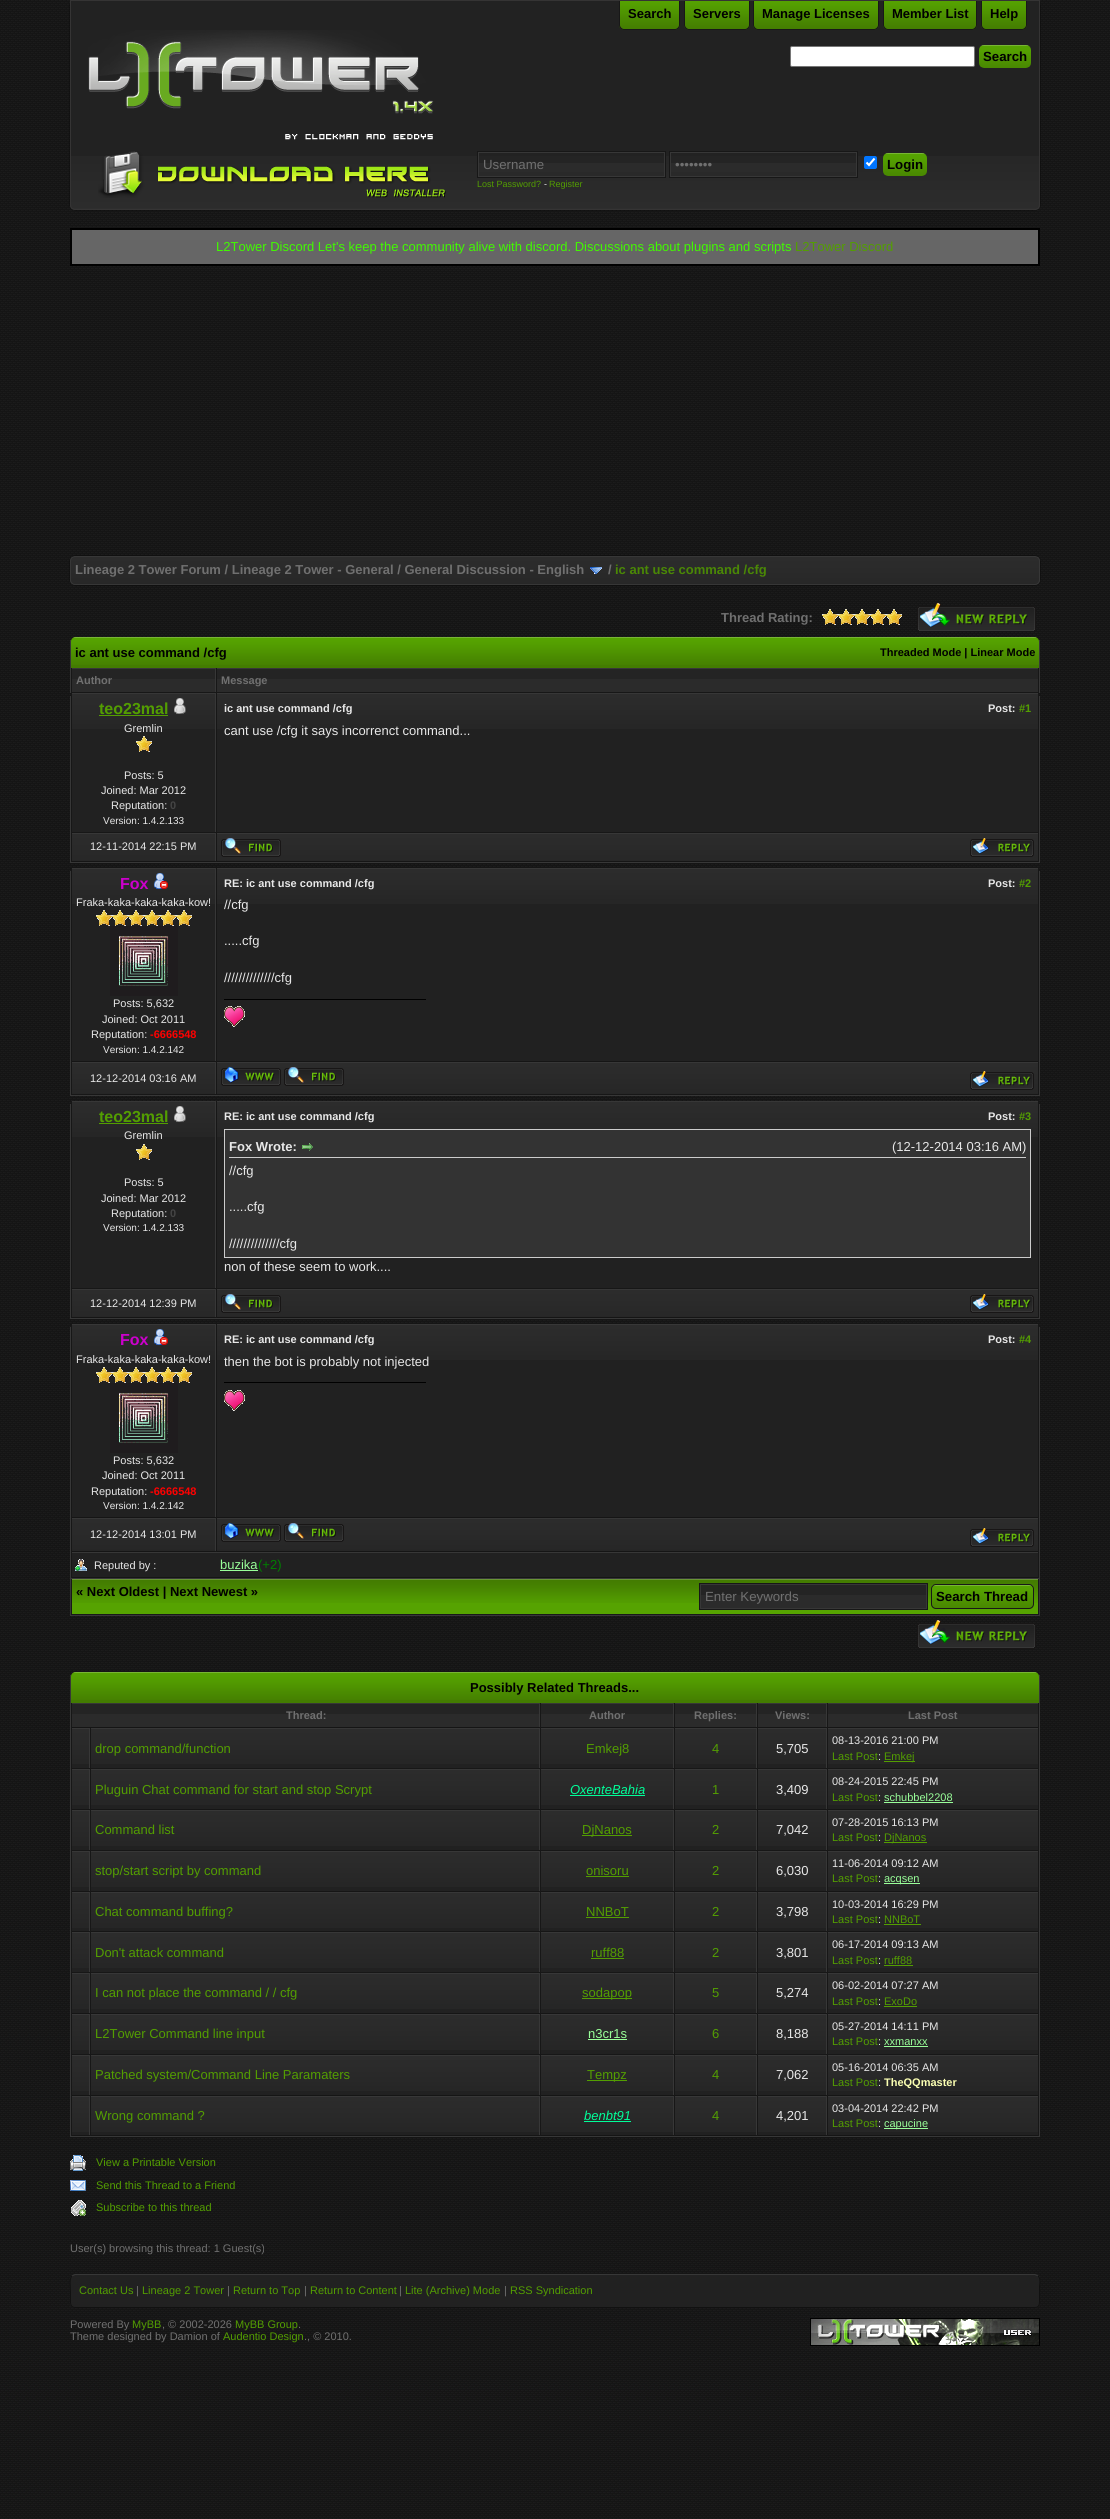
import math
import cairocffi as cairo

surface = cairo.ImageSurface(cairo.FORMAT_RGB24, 1110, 2519)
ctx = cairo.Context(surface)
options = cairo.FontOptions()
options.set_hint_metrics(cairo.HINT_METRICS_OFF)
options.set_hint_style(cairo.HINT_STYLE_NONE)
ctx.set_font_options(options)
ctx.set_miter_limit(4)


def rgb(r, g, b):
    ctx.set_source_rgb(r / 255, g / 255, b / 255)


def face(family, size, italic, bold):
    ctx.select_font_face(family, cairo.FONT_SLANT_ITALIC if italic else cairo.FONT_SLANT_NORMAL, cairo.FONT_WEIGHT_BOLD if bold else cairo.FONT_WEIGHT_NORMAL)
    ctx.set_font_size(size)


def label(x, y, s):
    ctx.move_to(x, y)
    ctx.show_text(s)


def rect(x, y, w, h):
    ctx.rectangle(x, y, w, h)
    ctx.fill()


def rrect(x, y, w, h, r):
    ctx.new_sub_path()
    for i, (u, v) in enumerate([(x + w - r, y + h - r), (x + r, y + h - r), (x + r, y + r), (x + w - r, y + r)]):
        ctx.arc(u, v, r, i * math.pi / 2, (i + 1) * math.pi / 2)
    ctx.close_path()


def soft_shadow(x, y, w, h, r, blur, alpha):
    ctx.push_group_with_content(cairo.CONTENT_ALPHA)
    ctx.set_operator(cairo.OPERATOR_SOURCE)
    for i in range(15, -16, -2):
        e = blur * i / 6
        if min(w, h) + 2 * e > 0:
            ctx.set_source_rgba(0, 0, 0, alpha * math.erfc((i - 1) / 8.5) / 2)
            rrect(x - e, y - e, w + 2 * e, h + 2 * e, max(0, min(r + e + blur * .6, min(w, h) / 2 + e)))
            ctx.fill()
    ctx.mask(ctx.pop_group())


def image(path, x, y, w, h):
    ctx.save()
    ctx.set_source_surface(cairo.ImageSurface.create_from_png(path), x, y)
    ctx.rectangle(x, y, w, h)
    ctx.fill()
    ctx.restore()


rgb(30, 30, 30)
ctx.paint()
image('image0.png', 0, 0, 1110, 2519)
rgb(0, 0, 0)
soft_shadow(70, 0, 970, 210, 5, 0.5, 1)
rgb(34, 34, 34)
ctx.new_path()
ctx.move_to(70, 0)
ctx.line_to(1040, 0)
ctx.line_to(1040, 205)
ctx.curve_to(1040, 208, 1038, 210, 1035, 210)
ctx.line_to(75, 210)
ctx.curve_to(72, 210, 70, 208, 70, 205)
ctx.close_path()
ctx.fill()
image('image1.png', 70, 156, 970, 53)
ctx.new_path()
ctx.move_to(70.5, 0.5)
ctx.line_to(1039.5, 0.5)
ctx.line_to(1039.5, 205)
ctx.curve_to(1039.5, 207.5, 1037.5, 209.5, 1035, 209.5)
ctx.line_to(75, 209.5)
ctx.curve_to(72.5, 209.5, 70.5, 207.5, 70.5, 205)
ctx.close_path()
rgb(53, 52, 52)
ctx.set_line_width(1)
ctx.stroke()
image('image2.png', 619, 1, 61, 29)
image('image3.png', 684, 1, 66, 29)
image('image4.png', 753, 1, 126, 29)
image('image5.png', 883, 1, 94, 29)
image('image6.png', 981, 1, 46, 29)
rgb(24, 24, 24)
ctx.new_path()
ctx.move_to(680, 1)
ctx.line_to(680, 25)
ctx.curve_to(680, 28, 678, 30, 675, 30)
ctx.line_to(624, 30)
ctx.curve_to(621, 30, 619, 28, 619, 25)
ctx.line_to(619, 1)
ctx.line_to(620, 1)
ctx.line_to(620, 25)
ctx.curve_to(620, 27, 622, 29, 624, 29)
ctx.line_to(675, 29)
ctx.curve_to(677, 29, 679, 27, 679, 25)
ctx.line_to(679, 1)
ctx.close_path()
ctx.fill()
face('Liberation Sans', 13, 0, 1)
rgb(0, 0, 0)
label(628, 18, 'Search')
rgb(24, 24, 24)
ctx.new_path()
ctx.move_to(750, 1)
ctx.line_to(750, 25)
ctx.curve_to(750, 28, 748, 30, 745, 30)
ctx.line_to(689, 30)
ctx.curve_to(686, 30, 684, 28, 684, 25)
ctx.line_to(684, 1)
ctx.line_to(685, 1)
ctx.line_to(685, 25)
ctx.curve_to(685, 27, 687, 29, 689, 29)
ctx.line_to(745, 29)
ctx.curve_to(747, 29, 749, 27, 749, 25)
ctx.line_to(749, 1)
ctx.close_path()
ctx.fill()
rgb(0, 0, 0)
label(693, 18, 'Servers')
rgb(24, 24, 24)
ctx.new_path()
ctx.move_to(879, 1)
ctx.line_to(879, 25)
ctx.curve_to(879, 28, 877, 30, 874, 30)
ctx.line_to(758, 30)
ctx.curve_to(755, 30, 753, 28, 753, 25)
ctx.line_to(753, 1)
ctx.line_to(754, 1)
ctx.line_to(754, 25)
ctx.curve_to(754, 27, 756, 29, 758, 29)
ctx.line_to(874, 29)
ctx.curve_to(876, 29, 878, 27, 878, 25)
ctx.line_to(878, 1)
ctx.close_path()
ctx.fill()
rgb(0, 0, 0)
label(762, 18, 'Manage Licenses')
rgb(24, 24, 24)
ctx.new_path()
ctx.move_to(977, 1)
ctx.line_to(977, 25)
ctx.curve_to(977, 28, 975, 30, 972, 30)
ctx.line_to(888, 30)
ctx.curve_to(885, 30, 883, 28, 883, 25)
ctx.line_to(883, 1)
ctx.line_to(884, 1)
ctx.line_to(884, 25)
ctx.curve_to(884, 27, 886, 29, 888, 29)
ctx.line_to(972, 29)
ctx.curve_to(974, 29, 976, 27, 976, 25)
ctx.line_to(976, 1)
ctx.close_path()
ctx.fill()
rgb(0, 0, 0)
label(892, 18, 'Member List')
rgb(24, 24, 24)
ctx.new_path()
ctx.move_to(1027, 1)
ctx.line_to(1027, 25)
ctx.curve_to(1027, 28, 1025, 30, 1022, 30)
ctx.line_to(986, 30)
ctx.curve_to(983, 30, 981, 28, 981, 25)
ctx.line_to(981, 1)
ctx.line_to(982, 1)
ctx.line_to(982, 25)
ctx.curve_to(982, 27, 984, 29, 986, 29)
ctx.line_to(1022, 29)
ctx.curve_to(1024, 29, 1026, 27, 1026, 25)
ctx.line_to(1026, 1)
ctx.close_path()
ctx.fill()
rgb(0, 0, 0)
label(990, 18, 'Help')
image('image7.png', 88, 30, 346, 110)
rgb(255, 255, 255)
rrect(790.5, 46.5, 184, 20, 1.5)
ctx.fill_preserve()
rgb(118, 118, 118)
ctx.stroke()
image('image8.png', 979, 45, 52, 23)
face('Liberation Sans', 13.25, 0, 1)
rgb(0, 0, 0)
label(983, 61, 'Search')
image('image9.png', 98, 151, 348, 47)
rgb(43, 43, 43)
rect(479, 163, 185, 9)
rgb(36, 36, 36)
rect(479, 156, 185, 7)
ctx.rectangle(478.5, 152.5, 186, 24)
rgb(55, 55, 55)
ctx.stroke()
ctx.rectangle(477.5, 151.5, 188, 26)
rgb(23, 23, 23)
ctx.stroke()
face('Liberation Sans', 13.25, 0, 0)
rgb(112, 112, 112)
label(483, 169, 'Username')
rgb(43, 43, 43)
rect(671, 163, 185, 9)
rgb(36, 36, 36)
rect(671, 156, 185, 7)
ctx.rectangle(670.5, 152.5, 186, 24)
rgb(55, 55, 55)
ctx.stroke()
ctx.rectangle(669.5, 151.5, 188, 26)
rgb(23, 23, 23)
ctx.stroke()
rgb(112, 112, 112)
label(675, 169, '••••••••')
rgb(0, 117, 255)
rrect(864, 156, 13, 13, 2)
ctx.fill()
ctx.new_path()
ctx.move_to(866.5, 162.5)
ctx.line_to(869, 165)
ctx.line_to(874.5, 158.5)
rgb(255, 255, 255)
ctx.set_line_width(2.1)
ctx.stroke()
image('image10.png', 883, 153, 44, 23)
face('Liberation Sans', 13.25, 0, 1)
rgb(0, 0, 0)
label(887, 169, 'Login')
face('Liberation Sans', 9, 0, 0)
rgb(83, 158, 1)
label(477, 187, 'Lost Password?')
rgb(232, 232, 232)
label(544, 187, '-')
rgb(83, 158, 1)
label(549, 187, 'Register')
rgb(102, 102, 102)
ctx.rectangle(71, 229, 968, 36)
ctx.fill_preserve()
rgb(0, 0, 0)
ctx.set_line_width(2)
ctx.stroke()
face('Liberation Sans', 13, 0, 0)
rgb(65, 250, 0)
label(216, 251, 'L2Tower Discord Let\'s keep the community alive with discord. Discussions about plugins and scripts')
rgb(83, 158, 1)
label(795, 251, 'L2Tower Discord')
rgb(0, 0, 0)
soft_shadow(70, 556, 970, 29, 5, 0.5, 1)
image('image11.png', 70, 557, 970, 28)
rrect(70.5, 556.5, 969, 28, 4.5)
rgb(55, 55, 55)
ctx.set_line_width(1)
ctx.stroke()
face('Liberation Sans', 13, 0, 1)
rgb(112, 112, 112)
label(75, 574, 'Lineage 2 Tower Forum / Lineage 2 Tower - General / General Discussion - English')
image('image12.png', 590, 567, 12, 7)
label(608, 574, '/')
rgb(74, 136, 5)
label(615, 574, 'ic ant use command /cfg')
rgb(112, 112, 112)
label(721, 622, 'Thread Rating:')
image('image13.png', 822, 609, 80, 16)
image('image14.png', 917, 603, 119, 28)
rgb(55, 55, 55)
rect(1039, 640, 1, 53)
rect(70, 640, 1, 53)
rgb(67, 124, 1)
ctx.new_path()
ctx.move_to(76, 637)
ctx.line_to(1034, 637)
ctx.curve_to(1037, 637, 1039, 639, 1039, 642)
ctx.line_to(1039, 668)
ctx.line_to(71, 668)
ctx.line_to(71, 642)
ctx.curve_to(71, 639, 73, 637, 76, 637)
ctx.close_path()
ctx.fill()
image('image15.png', 71, 637, 968, 28)
rgb(0, 0, 0)
label(75, 657, 'ic ant use command /cfg')
face('Liberation Sans', 11, 0, 1)
label(880, 656, 'Threaded Mode | Linear Mode')
rgb(43, 43, 43)
rect(72, 679, 143, 13)
rgb(36, 36, 36)
rect(72, 669, 143, 10)
rgb(55, 55, 55)
rect(71, 668, 968, 1)
rect(215, 668, 1, 25)
rgb(23, 23, 23)
rect(71, 692, 145, 1)
rect(71, 668, 1, 25)
rgb(112, 112, 112)
label(76, 684, 'Author')
rgb(43, 43, 43)
rect(217, 679, 821, 13)
rgb(36, 36, 36)
rect(217, 669, 821, 10)
rgb(23, 23, 23)
rect(1038, 668, 1, 25)
rect(216, 692, 823, 1)
rect(216, 668, 1, 25)
rgb(112, 112, 112)
label(221, 684, 'Message')
rgb(55, 55, 55)
rect(1039, 696, 1, 167)
rect(70, 862, 970, 1)
rect(70, 696, 1, 167)
rgb(33, 33, 33)
rect(72, 729, 143, 103)
image('image16.png', 72, 694, 143, 35)
rgb(55, 55, 55)
rect(71, 693, 968, 1)
rect(215, 693, 1, 140)
rgb(23, 23, 23)
rect(71, 832, 145, 1)
rect(71, 693, 1, 140)
face('Liberation Sans', 16, 0, 1)
rgb(83, 158, 1)
label(99, 714, 'teo23mal')
rect(99, 715, 69, 1)
image('image17.png', 174, 698, 12, 16)
face('Liberation Sans', 11, 0, 0)
rgb(232, 232, 232)
label(124, 732, 'Gremlin')
image('image18.png', 136, 736, 16, 16)
label(124, 779, 'Posts: 5')
label(101, 794, 'Joined: Mar 2012')
label(111, 809, 'Reputation:')
face('Liberation Sans', 11, 0, 1)
rgb(68, 68, 68)
label(170, 809, '0')
face('Liberation Sans', 10, 0, 0)
rgb(232, 232, 232)
label(103, 824, 'Version: 1.4.2.133')
rgb(33, 33, 33)
rect(217, 729, 821, 103)
image('image19.png', 217, 694, 821, 35)
rgb(23, 23, 23)
rect(1038, 693, 1, 140)
rect(216, 832, 823, 1)
rect(216, 693, 1, 140)
face('Liberation Sans', 11, 0, 1)
rgb(232, 232, 232)
label(224, 712, 'ic ant use command /cfg')
label(988, 712, 'Post:')
rgb(83, 158, 1)
label(1019, 712, '#1')
face('Liberation Sans', 13, 0, 0)
rgb(232, 232, 232)
label(224, 735, 'cant use /cfg it says incorrenct command...')
image('image20.png', 72, 834, 143, 27)
rgb(55, 55, 55)
rect(71, 833, 968, 1)
rect(215, 833, 1, 29)
rgb(23, 23, 23)
rect(215, 861, 1, 1)
rect(71, 833, 1, 29)
face('Liberation Sans', 11, 0, 0)
rgb(232, 232, 232)
label(90, 850, '12-11-2014 22:15 PM')
image('image21.png', 217, 834, 821, 27)
rgb(23, 23, 23)
rect(1038, 833, 1, 29)
rect(216, 833, 1, 29)
image('image22.png', 221, 838, 60, 19)
image('image23.png', 970, 838, 64, 19)
rgb(55, 55, 55)
rect(1039, 871, 1, 225)
rect(70, 1095, 970, 1)
rect(70, 871, 1, 225)
rgb(33, 33, 33)
rect(72, 904, 143, 157)
image('image16.png', 72, 869, 143, 35)
rgb(55, 55, 55)
rect(71, 868, 968, 1)
rect(215, 868, 1, 194)
rgb(23, 23, 23)
rect(215, 1061, 1, 1)
rect(71, 868, 1, 194)
face('Liberation Sans', 16, 0, 1)
rgb(204, 0, 204)
label(120, 889, 'Fox')
image('image24.png', 154, 873, 14, 16)
face('Liberation Sans', 11, 0, 0)
rgb(232, 232, 232)
label(76, 906, 'Fraka-kaka-kaka-kaka-kow!')
image('image18.png', 96, 910, 16, 16)
image('image18.png', 112, 910, 16, 16)
image('image18.png', 128, 910, 16, 16)
image('image18.png', 144, 910, 16, 16)
image('image18.png', 160, 910, 16, 16)
image('image18.png', 176, 910, 16, 16)
image('image25.png', 110, 926, 68, 70)
label(113, 1007, 'Posts: 5,632')
label(102, 1023, 'Joined: Oct 2011')
label(91, 1038, 'Reputation:')
face('Liberation Sans', 11, 0, 1)
rgb(255, 0, 0)
label(150, 1038, '-6666548')
face('Liberation Sans', 10, 0, 0)
rgb(232, 232, 232)
label(103, 1053, 'Version: 1.4.2.142')
rgb(33, 33, 33)
rect(217, 904, 821, 157)
image('image19.png', 217, 869, 821, 35)
rgb(23, 23, 23)
rect(1038, 868, 1, 194)
rect(216, 868, 1, 194)
face('Liberation Sans', 11, 0, 1)
rgb(232, 232, 232)
label(224, 887, 'RE: ic ant use command /cfg')
label(988, 887, 'Post:')
rgb(83, 158, 1)
label(1019, 887, '#2')
face('Liberation Sans', 13, 0, 0)
rgb(232, 232, 232)
label(224, 909, '//cfg')
label(224, 945, '.....cfg')
label(224, 982, '//////////////cfg')
rgb(0, 0, 0)
rect(224, 999, 202, 1)
image('image26.png', 224, 1006, 21, 21)
image('image27.png', 72, 1063, 143, 31)
rgb(55, 55, 55)
rect(71, 1062, 968, 1)
rect(215, 1062, 1, 33)
rgb(23, 23, 23)
rect(71, 1094, 145, 1)
rect(71, 1062, 1, 33)
face('Liberation Sans', 11, 0, 0)
rgb(232, 232, 232)
label(90, 1082, '12-12-2014 03:16 AM')
image('image28.png', 217, 1063, 821, 31)
rgb(23, 23, 23)
rect(1038, 1062, 1, 33)
rect(216, 1094, 823, 1)
rect(216, 1062, 1, 33)
image('image29.png', 221, 1067, 60, 19)
image('image22.png', 284, 1067, 60, 19)
image('image30.png', 970, 1071, 64, 19)
rgb(55, 55, 55)
rect(1039, 1104, 1, 215)
rect(70, 1318, 970, 1)
rect(70, 1104, 1, 215)
rgb(33, 33, 33)
rect(72, 1137, 143, 151)
image('image16.png', 72, 1102, 143, 35)
rgb(55, 55, 55)
rect(71, 1101, 968, 1)
rect(215, 1101, 1, 188)
rgb(23, 23, 23)
rect(71, 1288, 145, 1)
rect(71, 1101, 1, 188)
face('Liberation Sans', 16, 0, 1)
rgb(83, 158, 1)
label(99, 1122, 'teo23mal')
rect(99, 1123, 69, 1)
image('image17.png', 174, 1106, 12, 16)
face('Liberation Sans', 11, 0, 0)
rgb(232, 232, 232)
label(124, 1139, 'Gremlin')
image('image18.png', 136, 1144, 16, 16)
label(124, 1186, 'Posts: 5')
label(101, 1202, 'Joined: Mar 2012')
label(111, 1217, 'Reputation:')
face('Liberation Sans', 11, 0, 1)
rgb(68, 68, 68)
label(170, 1217, '0')
face('Liberation Sans', 10, 0, 0)
rgb(232, 232, 232)
label(103, 1231, 'Version: 1.4.2.133')
rgb(33, 33, 33)
rect(217, 1137, 821, 151)
image('image19.png', 217, 1102, 821, 35)
rgb(23, 23, 23)
rect(1038, 1101, 1, 188)
rect(216, 1288, 823, 1)
rect(216, 1101, 1, 188)
face('Liberation Sans', 11, 0, 1)
rgb(232, 232, 232)
label(224, 1120, 'RE: ic ant use command /cfg')
label(988, 1120, 'Post:')
rgb(83, 158, 1)
label(1019, 1120, '#3')
rgb(51, 51, 51)
ctx.rectangle(224.5, 1129.5, 806, 128)
ctx.fill_preserve()
rgb(204, 204, 204)
ctx.stroke()
rect(229, 1157, 797, 1)
face('Liberation Sans', 13, 0, 1)
rgb(232, 232, 232)
label(229, 1151, 'Fox Wrote:')
image('image31.png', 302, 1143, 11, 8)
face('Liberation Sans', 13, 0, 0)
label(892, 1151, '(12-12-2014 03:16 AM)')
label(229, 1175, '//cfg')
label(229, 1211, '.....cfg')
label(229, 1248, '//////////////cfg')
label(224, 1271, 'non of these seem to work....')
image('image20.png', 72, 1290, 143, 27)
rgb(55, 55, 55)
rect(71, 1289, 968, 1)
rect(215, 1289, 1, 29)
rgb(23, 23, 23)
rect(215, 1317, 1, 1)
rect(71, 1289, 1, 29)
face('Liberation Sans', 11, 0, 0)
rgb(232, 232, 232)
label(90, 1307, '12-12-2014 12:39 PM')
image('image21.png', 217, 1290, 821, 27)
rgb(23, 23, 23)
rect(1038, 1289, 1, 29)
rect(216, 1289, 1, 29)
image('image22.png', 221, 1294, 60, 19)
image('image23.png', 970, 1294, 64, 19)
rgb(55, 55, 55)
rect(1039, 1327, 1, 289)
rect(70, 1578, 970, 1)
rect(70, 1327, 1, 252)
rgb(33, 33, 33)
rect(72, 1360, 143, 157)
image('image16.png', 72, 1325, 143, 35)
rgb(55, 55, 55)
rect(71, 1324, 968, 1)
rect(215, 1324, 1, 194)
rgb(23, 23, 23)
rect(215, 1517, 1, 1)
rect(71, 1324, 1, 194)
face('Liberation Sans', 16, 0, 1)
rgb(204, 0, 204)
label(120, 1345, 'Fox')
image('image24.png', 154, 1329, 14, 16)
face('Liberation Sans', 11, 0, 0)
rgb(232, 232, 232)
label(76, 1363, 'Fraka-kaka-kaka-kaka-kow!')
image('image18.png', 96, 1367, 16, 16)
image('image18.png', 112, 1367, 16, 16)
image('image18.png', 128, 1367, 16, 16)
image('image18.png', 144, 1367, 16, 16)
image('image18.png', 160, 1367, 16, 16)
image('image18.png', 176, 1367, 16, 16)
image('image32.png', 110, 1383, 68, 70)
label(113, 1464, 'Posts: 5,632')
label(102, 1479, 'Joined: Oct 2011')
label(91, 1495, 'Reputation:')
face('Liberation Sans', 11, 0, 1)
rgb(255, 0, 0)
label(150, 1495, '-6666548')
face('Liberation Sans', 10, 0, 0)
rgb(232, 232, 232)
label(103, 1509, 'Version: 1.4.2.142')
rgb(33, 33, 33)
rect(217, 1360, 821, 157)
image('image19.png', 217, 1325, 821, 35)
rgb(23, 23, 23)
rect(1038, 1324, 1, 194)
rect(216, 1324, 1, 194)
face('Liberation Sans', 11, 0, 1)
rgb(232, 232, 232)
label(224, 1343, 'RE: ic ant use command /cfg')
label(988, 1343, 'Post:')
rgb(83, 158, 1)
label(1019, 1343, '#4')
face('Liberation Sans', 13, 0, 0)
rgb(232, 232, 232)
label(224, 1366, 'then the bot is probably not injected')
rgb(0, 0, 0)
rect(224, 1382, 202, 1)
image('image26.png', 224, 1390, 21, 21)
image('image33.png', 72, 1519, 143, 32)
rgb(55, 55, 55)
rect(71, 1518, 968, 1)
rect(215, 1518, 1, 34)
rgb(23, 23, 23)
rect(215, 1551, 1, 1)
rect(71, 1518, 1, 34)
face('Liberation Sans', 11, 0, 0)
rgb(232, 232, 232)
label(90, 1538, '12-12-2014 13:01 PM')
image('image34.png', 217, 1519, 821, 32)
rgb(23, 23, 23)
rect(1038, 1518, 1, 34)
rect(216, 1518, 1, 34)
image('image29.png', 221, 1523, 60, 19)
image('image22.png', 284, 1523, 60, 19)
image('image35.png', 970, 1528, 64, 19)
rgb(33, 33, 33)
rect(72, 1553, 966, 24)
rgb(55, 55, 55)
rect(71, 1552, 968, 1)
rgb(23, 23, 23)
rect(1038, 1552, 1, 26)
rect(71, 1552, 1, 26)
image('image36.png', 75, 1559, 12, 12)
rgb(232, 232, 232)
label(94, 1569, 'Reputed by :')
face('Liberation Sans', 13, 0, 0)
rgb(153, 255, 153)
label(220, 1569, 'buzika')
rgb(0, 128, 0)
label(258, 1569, '(+2)')
rgb(153, 255, 153)
rect(220, 1570, 38, 1)
rgb(55, 55, 55)
rect(70, 1615, 970, 1)
rect(70, 1579, 1, 37)
rgb(86, 163, 1)
rect(72, 1603, 966, 11)
image('image37.png', 72, 1579, 966, 24)
rgb(24, 24, 24)
rect(1038, 1579, 1, 36)
rect(71, 1614, 968, 1)
rect(71, 1579, 1, 36)
face('Liberation Sans', 13, 0, 1)
rgb(0, 0, 0)
label(76, 1596, '« Next Oldest | Next Newest »')
rgb(43, 43, 43)
rect(701, 1595, 225, 13)
rgb(36, 36, 36)
rect(701, 1585, 225, 10)
ctx.rectangle(700.5, 1584.5, 226, 24)
rgb(55, 55, 55)
ctx.stroke()
ctx.rectangle(699.5, 1583.5, 228, 26)
rgb(23, 23, 23)
ctx.stroke()
face('Liberation Sans', 13.25, 0, 0)
rgb(112, 112, 112)
label(705, 1601, 'Enter Keywords')
image('image38.png', 931, 1585, 103, 24)
rrect(931.5, 1584.5, 102, 24, 4.5)
rgb(24, 24, 24)
ctx.stroke()
face('Liberation Sans', 13.25, 0, 1)
rgb(0, 0, 0)
label(936, 1601, 'Search Thread')
image('image39.png', 917, 1620, 119, 29)
rgb(55, 55, 55)
rect(1039, 1675, 1, 462)
rect(70, 2136, 970, 1)
rect(70, 1675, 1, 462)
rgb(67, 124, 1)
ctx.new_path()
ctx.move_to(76, 1672)
ctx.line_to(1034, 1672)
ctx.curve_to(1037, 1672, 1039, 1674, 1039, 1677)
ctx.line_to(1039, 1703)
ctx.line_to(71, 1703)
ctx.line_to(71, 1677)
ctx.curve_to(71, 1674, 73, 1672, 76, 1672)
ctx.close_path()
ctx.fill()
image('image40.png', 71, 1672, 968, 28)
face('Liberation Sans', 13, 0, 1)
rgb(0, 0, 0)
label(470, 1692, 'Possibly Related Threads...')
rgb(43, 43, 43)
rect(72, 1714, 467, 13)
rgb(36, 36, 36)
rect(72, 1704, 467, 10)
rgb(55, 55, 55)
rect(71, 1703, 968, 1)
rect(539, 1703, 1, 25)
rgb(23, 23, 23)
rect(539, 1727, 1, 1)
rect(71, 1703, 1, 25)
face('Liberation Sans', 11, 0, 1)
rgb(112, 112, 112)
label(286, 1719, 'Thread:')
rgb(43, 43, 43)
rect(541, 1714, 132, 13)
rgb(36, 36, 36)
rect(541, 1704, 132, 10)
rgb(55, 55, 55)
rect(673, 1703, 1, 25)
rgb(23, 23, 23)
rect(673, 1727, 1, 1)
rect(540, 1703, 1, 25)
rgb(112, 112, 112)
label(589, 1719, 'Author')
rgb(43, 43, 43)
rect(675, 1714, 81, 13)
rgb(36, 36, 36)
rect(675, 1704, 81, 10)
rgb(55, 55, 55)
rect(756, 1703, 1, 25)
rgb(23, 23, 23)
rect(756, 1727, 1, 1)
rect(674, 1703, 1, 25)
rgb(112, 112, 112)
label(694, 1719, 'Replies:')
rgb(43, 43, 43)
rect(758, 1714, 68, 13)
rgb(36, 36, 36)
rect(758, 1704, 68, 10)
rgb(55, 55, 55)
rect(826, 1703, 1, 25)
rgb(23, 23, 23)
rect(826, 1727, 1, 1)
rect(757, 1703, 1, 25)
rgb(112, 112, 112)
label(775, 1719, 'Views:')
rgb(43, 43, 43)
rect(828, 1714, 210, 13)
rgb(36, 36, 36)
rect(828, 1704, 210, 10)
rgb(23, 23, 23)
rect(1038, 1703, 1, 25)
rect(827, 1703, 1, 25)
rgb(112, 112, 112)
label(908, 1719, 'Last Post')
rgb(33, 33, 33)
rect(72, 1764, 17, 4)
image('image41.png', 72, 1729, 17, 35)
rgb(55, 55, 55)
rect(71, 1728, 968, 1)
rect(89, 1728, 1, 41)
rgb(23, 23, 23)
rect(71, 1768, 19, 1)
rect(71, 1728, 1, 41)
rgb(33, 33, 33)
rect(91, 1764, 448, 4)
image('image42.png', 91, 1729, 448, 35)
rgb(55, 55, 55)
rect(539, 1728, 1, 41)
rgb(23, 23, 23)
rect(90, 1768, 450, 1)
rect(90, 1728, 1, 41)
face('Liberation Sans', 13, 0, 0)
rgb(83, 158, 1)
label(95, 1753, 'drop command/function')
rgb(33, 33, 33)
rect(541, 1764, 132, 4)
image('image43.png', 541, 1729, 132, 35)
rgb(55, 55, 55)
rect(673, 1728, 1, 41)
rgb(23, 23, 23)
rect(540, 1768, 134, 1)
rect(540, 1728, 1, 41)
rgb(83, 158, 1)
label(586, 1753, 'Emkej8')
rgb(33, 33, 33)
rect(675, 1764, 81, 4)
image('image44.png', 675, 1729, 81, 35)
rgb(55, 55, 55)
rect(756, 1728, 1, 41)
rgb(23, 23, 23)
rect(674, 1768, 83, 1)
rect(674, 1728, 1, 41)
rgb(83, 158, 1)
label(712, 1753, '4')
rgb(33, 33, 33)
rect(758, 1764, 68, 4)
image('image45.png', 758, 1729, 68, 35)
rgb(55, 55, 55)
rect(826, 1728, 1, 41)
rgb(23, 23, 23)
rect(757, 1768, 70, 1)
rect(757, 1728, 1, 41)
rgb(232, 232, 232)
label(776, 1753, '5,705')
rgb(33, 33, 33)
rect(828, 1764, 210, 4)
image('image46.png', 828, 1729, 210, 35)
rgb(23, 23, 23)
rect(1038, 1728, 1, 41)
rect(827, 1768, 212, 1)
rect(827, 1728, 1, 41)
face('Liberation Sans', 11, 0, 0)
rgb(232, 232, 232)
label(832, 1744, '08-13-2016 21:00 PM')
rgb(83, 158, 1)
label(832, 1760, 'Last Post')
rgb(232, 232, 232)
label(878, 1760, ':')
rgb(83, 158, 1)
rect(884, 1761, 31, 1)
label(884, 1760, 'Emkej')
rgb(33, 33, 33)
rect(72, 1805, 17, 4)
image('image41.png', 72, 1770, 17, 35)
rgb(55, 55, 55)
rect(71, 1769, 968, 1)
rect(89, 1769, 1, 41)
rgb(23, 23, 23)
rect(89, 1809, 1, 1)
rect(71, 1769, 1, 41)
rgb(33, 33, 33)
rect(91, 1805, 448, 4)
image('image42.png', 91, 1770, 448, 35)
rgb(55, 55, 55)
rect(539, 1769, 1, 41)
rgb(23, 23, 23)
rect(539, 1809, 1, 1)
rect(90, 1769, 1, 41)
face('Liberation Sans', 13, 0, 0)
rgb(83, 158, 1)
label(95, 1794, 'Pluguin Chat command for start and stop Scrypt')
rgb(33, 33, 33)
rect(541, 1805, 132, 4)
image('image43.png', 541, 1770, 132, 35)
rgb(55, 55, 55)
rect(673, 1769, 1, 41)
rgb(23, 23, 23)
rect(673, 1809, 1, 1)
rect(540, 1769, 1, 41)
face('Liberation Sans', 13, 1, 0)
rgb(0, 255, 153)
label(570, 1794, 'OxenteBahia')
rect(570, 1795, 75, 1)
rgb(33, 33, 33)
rect(675, 1805, 81, 4)
image('image44.png', 675, 1770, 81, 35)
rgb(55, 55, 55)
rect(756, 1769, 1, 41)
rgb(23, 23, 23)
rect(756, 1809, 1, 1)
rect(674, 1769, 1, 41)
face('Liberation Sans', 13, 0, 0)
rgb(83, 158, 1)
label(712, 1794, '1')
rgb(33, 33, 33)
rect(758, 1805, 68, 4)
image('image45.png', 758, 1770, 68, 35)
rgb(55, 55, 55)
rect(826, 1769, 1, 41)
rgb(23, 23, 23)
rect(826, 1809, 1, 1)
rect(757, 1769, 1, 41)
rgb(232, 232, 232)
label(776, 1794, '3,409')
rgb(33, 33, 33)
rect(828, 1805, 210, 4)
image('image46.png', 828, 1770, 210, 35)
rgb(23, 23, 23)
rect(1038, 1769, 1, 41)
rect(827, 1769, 1, 41)
face('Liberation Sans', 11, 0, 0)
rgb(232, 232, 232)
label(832, 1785, '08-24-2015 22:45 PM')
rgb(83, 158, 1)
label(832, 1801, 'Last Post')
rgb(232, 232, 232)
label(878, 1801, ':')
rgb(153, 255, 153)
label(884, 1801, 'schubbel2208')
rect(884, 1802, 69, 1)
rgb(33, 33, 33)
rect(72, 1846, 17, 4)
image('image41.png', 72, 1811, 17, 35)
rgb(55, 55, 55)
rect(71, 1810, 968, 1)
rect(89, 1810, 1, 41)
rgb(23, 23, 23)
rect(71, 1850, 19, 1)
rect(71, 1810, 1, 41)
rgb(33, 33, 33)
rect(91, 1846, 448, 4)
image('image42.png', 91, 1811, 448, 35)
rgb(55, 55, 55)
rect(539, 1810, 1, 41)
rgb(23, 23, 23)
rect(90, 1850, 450, 1)
rect(90, 1810, 1, 41)
face('Liberation Sans', 13, 0, 0)
rgb(83, 158, 1)
label(95, 1834, 'Command list')
rgb(33, 33, 33)
rect(541, 1846, 132, 4)
image('image43.png', 541, 1811, 132, 35)
rgb(55, 55, 55)
rect(673, 1810, 1, 41)
rgb(23, 23, 23)
rect(540, 1850, 134, 1)
rect(540, 1810, 1, 41)
rgb(83, 158, 1)
rect(582, 1835, 50, 1)
label(582, 1834, 'DjNanos')
rgb(33, 33, 33)
rect(675, 1846, 81, 4)
image('image44.png', 675, 1811, 81, 35)
rgb(55, 55, 55)
rect(756, 1810, 1, 41)
rgb(23, 23, 23)
rect(674, 1850, 83, 1)
rect(674, 1810, 1, 41)
rgb(83, 158, 1)
label(712, 1834, '2')
rgb(33, 33, 33)
rect(758, 1846, 68, 4)
image('image45.png', 758, 1811, 68, 35)
rgb(55, 55, 55)
rect(826, 1810, 1, 41)
rgb(23, 23, 23)
rect(757, 1850, 70, 1)
rect(757, 1810, 1, 41)
rgb(232, 232, 232)
label(776, 1834, '7,042')
rgb(33, 33, 33)
rect(828, 1846, 210, 4)
image('image46.png', 828, 1811, 210, 35)
rgb(23, 23, 23)
rect(1038, 1810, 1, 41)
rect(827, 1850, 212, 1)
rect(827, 1810, 1, 41)
face('Liberation Sans', 11, 0, 0)
rgb(232, 232, 232)
label(832, 1826, '07-28-2015 16:13 PM')
rgb(83, 158, 1)
label(832, 1841, 'Last Post')
rgb(232, 232, 232)
label(878, 1841, ':')
rgb(83, 158, 1)
rect(884, 1842, 43, 1)
label(884, 1841, 'DjNanos')
rgb(33, 33, 33)
rect(72, 1887, 17, 4)
image('image41.png', 72, 1852, 17, 35)
rgb(55, 55, 55)
rect(71, 1851, 968, 1)
rect(89, 1851, 1, 41)
rgb(23, 23, 23)
rect(89, 1891, 1, 1)
rect(71, 1851, 1, 41)
rgb(33, 33, 33)
rect(91, 1887, 448, 4)
image('image42.png', 91, 1852, 448, 35)
rgb(55, 55, 55)
rect(539, 1851, 1, 41)
rgb(23, 23, 23)
rect(539, 1891, 1, 1)
rect(90, 1851, 1, 41)
face('Liberation Sans', 13, 0, 0)
rgb(83, 158, 1)
label(95, 1875, 'stop/start script by command')
rgb(33, 33, 33)
rect(541, 1887, 132, 4)
image('image43.png', 541, 1852, 132, 35)
rgb(55, 55, 55)
rect(673, 1851, 1, 41)
rgb(23, 23, 23)
rect(673, 1891, 1, 1)
rect(540, 1851, 1, 41)
rgb(83, 158, 1)
label(586, 1875, 'onisoru')
rect(586, 1876, 43, 1)
rgb(33, 33, 33)
rect(675, 1887, 81, 4)
image('image44.png', 675, 1852, 81, 35)
rgb(55, 55, 55)
rect(756, 1851, 1, 41)
rgb(23, 23, 23)
rect(756, 1891, 1, 1)
rect(674, 1851, 1, 41)
rgb(83, 158, 1)
label(712, 1875, '2')
rgb(33, 33, 33)
rect(758, 1887, 68, 4)
image('image45.png', 758, 1852, 68, 35)
rgb(55, 55, 55)
rect(826, 1851, 1, 41)
rgb(23, 23, 23)
rect(826, 1891, 1, 1)
rect(757, 1851, 1, 41)
rgb(232, 232, 232)
label(776, 1875, '6,030')
rgb(33, 33, 33)
rect(828, 1887, 210, 4)
image('image46.png', 828, 1852, 210, 35)
rgb(23, 23, 23)
rect(1038, 1851, 1, 41)
rect(827, 1851, 1, 41)
face('Liberation Sans', 11, 0, 0)
rgb(232, 232, 232)
label(832, 1867, '11-06-2014 09:12 AM')
rgb(83, 158, 1)
label(832, 1882, 'Last Post')
rgb(232, 232, 232)
label(878, 1882, ':')
rgb(153, 255, 153)
rect(884, 1883, 36, 1)
label(884, 1882, 'acqsen')
rgb(33, 33, 33)
rect(72, 1928, 17, 3)
image('image41.png', 72, 1893, 17, 35)
rgb(55, 55, 55)
rect(71, 1892, 968, 1)
rect(89, 1892, 1, 40)
rgb(23, 23, 23)
rect(89, 1931, 1, 1)
rect(71, 1892, 1, 40)
rgb(33, 33, 33)
rect(91, 1928, 448, 3)
image('image42.png', 91, 1893, 448, 35)
rgb(55, 55, 55)
rect(539, 1892, 1, 40)
rgb(23, 23, 23)
rect(539, 1931, 1, 1)
rect(90, 1892, 1, 40)
face('Liberation Sans', 13, 0, 0)
rgb(83, 158, 1)
label(95, 1916, 'Chat command buffing?')
rgb(33, 33, 33)
rect(541, 1928, 132, 3)
image('image43.png', 541, 1893, 132, 35)
rgb(55, 55, 55)
rect(673, 1892, 1, 40)
rgb(23, 23, 23)
rect(673, 1931, 1, 1)
rect(540, 1892, 1, 40)
rgb(83, 158, 1)
label(586, 1916, 'NNBoT')
rect(586, 1917, 43, 1)
rgb(33, 33, 33)
rect(675, 1928, 81, 3)
image('image44.png', 675, 1893, 81, 35)
rgb(55, 55, 55)
rect(756, 1892, 1, 40)
rgb(23, 23, 23)
rect(756, 1931, 1, 1)
rect(674, 1892, 1, 40)
rgb(83, 158, 1)
label(712, 1916, '2')
rgb(33, 33, 33)
rect(758, 1928, 68, 3)
image('image45.png', 758, 1893, 68, 35)
rgb(55, 55, 55)
rect(826, 1892, 1, 40)
rgb(23, 23, 23)
rect(826, 1931, 1, 1)
rect(757, 1892, 1, 40)
rgb(232, 232, 232)
label(776, 1916, '3,798')
rgb(33, 33, 33)
rect(828, 1928, 210, 3)
image('image46.png', 828, 1893, 210, 35)
rgb(23, 23, 23)
rect(1038, 1892, 1, 40)
rect(827, 1892, 1, 40)
face('Liberation Sans', 11, 0, 0)
rgb(232, 232, 232)
label(832, 1908, '10-03-2014 16:29 PM')
rgb(83, 158, 1)
label(832, 1923, 'Last Post')
rgb(232, 232, 232)
label(878, 1923, ':')
rgb(83, 158, 1)
label(884, 1923, 'NNBoT')
rect(884, 1924, 37, 1)
rgb(33, 33, 33)
rect(72, 1968, 17, 4)
image('image41.png', 72, 1933, 17, 35)
rgb(55, 55, 55)
rect(71, 1932, 968, 1)
rect(89, 1932, 1, 41)
rgb(23, 23, 23)
rect(71, 1972, 19, 1)
rect(71, 1932, 1, 41)
rgb(33, 33, 33)
rect(91, 1968, 448, 4)
image('image42.png', 91, 1933, 448, 35)
rgb(55, 55, 55)
rect(539, 1932, 1, 41)
rgb(23, 23, 23)
rect(90, 1972, 450, 1)
rect(90, 1932, 1, 41)
face('Liberation Sans', 13, 0, 0)
rgb(83, 158, 1)
label(95, 1957, 'Don\'t attack command')
rgb(33, 33, 33)
rect(541, 1968, 132, 4)
image('image43.png', 541, 1933, 132, 35)
rgb(55, 55, 55)
rect(673, 1932, 1, 41)
rgb(23, 23, 23)
rect(540, 1972, 134, 1)
rect(540, 1932, 1, 41)
rgb(83, 158, 1)
label(591, 1957, 'ruff88')
rect(591, 1958, 33, 1)
rgb(33, 33, 33)
rect(675, 1968, 81, 4)
image('image44.png', 675, 1933, 81, 35)
rgb(55, 55, 55)
rect(756, 1932, 1, 41)
rgb(23, 23, 23)
rect(674, 1972, 83, 1)
rect(674, 1932, 1, 41)
rgb(83, 158, 1)
label(712, 1957, '2')
rgb(33, 33, 33)
rect(758, 1968, 68, 4)
image('image45.png', 758, 1933, 68, 35)
rgb(55, 55, 55)
rect(826, 1932, 1, 41)
rgb(23, 23, 23)
rect(757, 1972, 70, 1)
rect(757, 1932, 1, 41)
rgb(232, 232, 232)
label(776, 1957, '3,801')
rgb(33, 33, 33)
rect(828, 1968, 210, 4)
image('image46.png', 828, 1933, 210, 35)
rgb(23, 23, 23)
rect(1038, 1932, 1, 41)
rect(827, 1972, 212, 1)
rect(827, 1932, 1, 41)
face('Liberation Sans', 11, 0, 0)
rgb(232, 232, 232)
label(832, 1948, '06-17-2014 09:13 AM')
rgb(83, 158, 1)
label(832, 1964, 'Last Post')
rgb(232, 232, 232)
label(878, 1964, ':')
rgb(83, 158, 1)
label(884, 1964, 'ruff88')
rect(884, 1965, 29, 1)
rgb(33, 33, 33)
rect(72, 2009, 17, 4)
image('image41.png', 72, 1974, 17, 35)
rgb(55, 55, 55)
rect(71, 1973, 968, 1)
rect(89, 1973, 1, 41)
rgb(23, 23, 23)
rect(89, 2013, 1, 1)
rect(71, 1973, 1, 41)
rgb(33, 33, 33)
rect(91, 2009, 448, 4)
image('image42.png', 91, 1974, 448, 35)
rgb(55, 55, 55)
rect(539, 1973, 1, 41)
rgb(23, 23, 23)
rect(539, 2013, 1, 1)
rect(90, 1973, 1, 41)
face('Liberation Sans', 13, 0, 0)
rgb(83, 158, 1)
label(95, 1997, 'I can not place the command / / cfg')
rgb(33, 33, 33)
rect(541, 2009, 132, 4)
image('image43.png', 541, 1974, 132, 35)
rgb(55, 55, 55)
rect(673, 1973, 1, 41)
rgb(23, 23, 23)
rect(673, 2013, 1, 1)
rect(540, 1973, 1, 41)
rgb(83, 158, 1)
rect(582, 1998, 50, 1)
label(582, 1997, 'sodapop')
rgb(33, 33, 33)
rect(675, 2009, 81, 4)
image('image44.png', 675, 1974, 81, 35)
rgb(55, 55, 55)
rect(756, 1973, 1, 41)
rgb(23, 23, 23)
rect(756, 2013, 1, 1)
rect(674, 1973, 1, 41)
rgb(83, 158, 1)
label(712, 1997, '5')
rgb(33, 33, 33)
rect(758, 2009, 68, 4)
image('image45.png', 758, 1974, 68, 35)
rgb(55, 55, 55)
rect(826, 1973, 1, 41)
rgb(23, 23, 23)
rect(826, 2013, 1, 1)
rect(757, 1973, 1, 41)
rgb(232, 232, 232)
label(776, 1997, '5,274')
rgb(33, 33, 33)
rect(828, 2009, 210, 4)
image('image46.png', 828, 1974, 210, 35)
rgb(23, 23, 23)
rect(1038, 1973, 1, 41)
rect(827, 1973, 1, 41)
face('Liberation Sans', 11, 0, 0)
rgb(232, 232, 232)
label(832, 1989, '06-02-2014 07:27 AM')
rgb(83, 158, 1)
label(832, 2005, 'Last Post')
rgb(232, 232, 232)
label(878, 2005, ':')
rgb(83, 158, 1)
label(884, 2005, 'ExoDo')
rect(884, 2006, 33, 1)
rgb(33, 33, 33)
rect(72, 2050, 17, 4)
image('image41.png', 72, 2015, 17, 35)
rgb(55, 55, 55)
rect(71, 2014, 968, 1)
rect(89, 2014, 1, 41)
rgb(23, 23, 23)
rect(71, 2054, 19, 1)
rect(71, 2014, 1, 41)
rgb(33, 33, 33)
rect(91, 2050, 448, 4)
image('image42.png', 91, 2015, 448, 35)
rgb(55, 55, 55)
rect(539, 2014, 1, 41)
rgb(23, 23, 23)
rect(90, 2054, 450, 1)
rect(90, 2014, 1, 41)
face('Liberation Sans', 13, 0, 0)
rgb(83, 158, 1)
label(95, 2038, 'L2Tower Command line input')
rgb(33, 33, 33)
rect(541, 2050, 132, 4)
image('image43.png', 541, 2015, 132, 35)
rgb(55, 55, 55)
rect(673, 2014, 1, 41)
rgb(23, 23, 23)
rect(540, 2054, 134, 1)
rect(540, 2014, 1, 41)
rgb(153, 255, 153)
label(588, 2038, 'n3cr1s')
rect(588, 2039, 39, 1)
rgb(33, 33, 33)
rect(675, 2050, 81, 4)
image('image44.png', 675, 2015, 81, 35)
rgb(55, 55, 55)
rect(756, 2014, 1, 41)
rgb(23, 23, 23)
rect(674, 2054, 83, 1)
rect(674, 2014, 1, 41)
rgb(83, 158, 1)
label(712, 2038, '6')
rgb(33, 33, 33)
rect(758, 2050, 68, 4)
image('image45.png', 758, 2015, 68, 35)
rgb(55, 55, 55)
rect(826, 2014, 1, 41)
rgb(23, 23, 23)
rect(757, 2054, 70, 1)
rect(757, 2014, 1, 41)
rgb(232, 232, 232)
label(776, 2038, '8,188')
rgb(33, 33, 33)
rect(828, 2050, 210, 4)
image('image46.png', 828, 2015, 210, 35)
rgb(23, 23, 23)
rect(1038, 2014, 1, 41)
rect(827, 2054, 212, 1)
rect(827, 2014, 1, 41)
face('Liberation Sans', 11, 0, 0)
rgb(232, 232, 232)
label(832, 2030, '05-27-2014 14:11 PM')
rgb(83, 158, 1)
label(832, 2045, 'Last Post')
rgb(232, 232, 232)
label(878, 2045, ':')
rgb(153, 255, 153)
label(884, 2045, 'xxmanxx')
rect(884, 2046, 44, 1)
rgb(33, 33, 33)
rect(72, 2091, 17, 4)
image('image41.png', 72, 2056, 17, 35)
rgb(55, 55, 55)
rect(71, 2055, 968, 1)
rect(89, 2055, 1, 41)
rgb(23, 23, 23)
rect(89, 2095, 1, 1)
rect(71, 2055, 1, 41)
rgb(33, 33, 33)
rect(91, 2091, 448, 4)
image('image42.png', 91, 2056, 448, 35)
rgb(55, 55, 55)
rect(539, 2055, 1, 41)
rgb(23, 23, 23)
rect(539, 2095, 1, 1)
rect(90, 2055, 1, 41)
face('Liberation Sans', 13, 0, 0)
rgb(83, 158, 1)
label(95, 2079, 'Patched system/Command Line Paramaters')
rgb(33, 33, 33)
rect(541, 2091, 132, 4)
image('image43.png', 541, 2056, 132, 35)
rgb(55, 55, 55)
rect(673, 2055, 1, 41)
rgb(23, 23, 23)
rect(673, 2095, 1, 1)
rect(540, 2055, 1, 41)
rgb(83, 158, 1)
rect(587, 2080, 40, 1)
label(587, 2079, 'Tempz')
rgb(33, 33, 33)
rect(675, 2091, 81, 4)
image('image44.png', 675, 2056, 81, 35)
rgb(55, 55, 55)
rect(756, 2055, 1, 41)
rgb(23, 23, 23)
rect(756, 2095, 1, 1)
rect(674, 2055, 1, 41)
rgb(83, 158, 1)
label(712, 2079, '4')
rgb(33, 33, 33)
rect(758, 2091, 68, 4)
image('image45.png', 758, 2056, 68, 35)
rgb(55, 55, 55)
rect(826, 2055, 1, 41)
rgb(23, 23, 23)
rect(826, 2095, 1, 1)
rect(757, 2055, 1, 41)
rgb(232, 232, 232)
label(776, 2079, '7,062')
rgb(33, 33, 33)
rect(828, 2091, 210, 4)
image('image46.png', 828, 2056, 210, 35)
rgb(23, 23, 23)
rect(1038, 2055, 1, 41)
rect(827, 2055, 1, 41)
face('Liberation Sans', 11, 0, 0)
rgb(232, 232, 232)
label(832, 2071, '05-16-2014 06:35 AM')
rgb(83, 158, 1)
label(832, 2086, 'Last Post')
rgb(232, 232, 232)
label(878, 2086, ':')
face('Liberation Sans', 11, 0, 1)
rgb(251, 255, 178)
label(884, 2086, 'TheQQmaster')
rgb(33, 33, 33)
rect(72, 2132, 17, 3)
image('image41.png', 72, 2097, 17, 35)
rgb(55, 55, 55)
rect(71, 2096, 968, 1)
rect(89, 2096, 1, 40)
rgb(23, 23, 23)
rect(89, 2135, 1, 1)
rect(71, 2096, 1, 40)
rgb(33, 33, 33)
rect(91, 2132, 448, 3)
image('image42.png', 91, 2097, 448, 35)
rgb(55, 55, 55)
rect(539, 2096, 1, 40)
rgb(23, 23, 23)
rect(539, 2135, 1, 1)
rect(90, 2096, 1, 40)
face('Liberation Sans', 13, 0, 0)
rgb(83, 158, 1)
label(95, 2120, 'Wrong command ?')
rgb(33, 33, 33)
rect(541, 2132, 132, 3)
image('image43.png', 541, 2097, 132, 35)
rgb(55, 55, 55)
rect(673, 2096, 1, 40)
rgb(23, 23, 23)
rect(673, 2135, 1, 1)
rect(540, 2096, 1, 40)
face('Liberation Sans', 13, 1, 0)
rgb(0, 255, 153)
label(584, 2120, 'benbt91')
rect(584, 2121, 47, 1)
rgb(33, 33, 33)
rect(675, 2132, 81, 3)
image('image44.png', 675, 2097, 81, 35)
rgb(55, 55, 55)
rect(756, 2096, 1, 40)
rgb(23, 23, 23)
rect(756, 2135, 1, 1)
rect(674, 2096, 1, 40)
face('Liberation Sans', 13, 0, 0)
rgb(83, 158, 1)
label(712, 2120, '4')
rgb(33, 33, 33)
rect(758, 2132, 68, 3)
image('image45.png', 758, 2097, 68, 35)
rgb(55, 55, 55)
rect(826, 2096, 1, 40)
rgb(23, 23, 23)
rect(826, 2135, 1, 1)
rect(757, 2096, 1, 40)
rgb(232, 232, 232)
label(776, 2120, '4,201')
rgb(33, 33, 33)
rect(828, 2132, 210, 3)
image('image46.png', 828, 2097, 210, 35)
rgb(23, 23, 23)
rect(1038, 2096, 1, 40)
rect(827, 2096, 1, 40)
face('Liberation Sans', 11, 0, 0)
rgb(232, 232, 232)
label(832, 2112, '03-04-2014 22:42 PM')
rgb(83, 158, 1)
label(832, 2127, 'Last Post')
rgb(232, 232, 232)
label(878, 2127, ':')
rgb(153, 255, 153)
rect(884, 2128, 44, 1)
label(884, 2127, 'capucine')
image('image47.png', 70, 2155, 16, 16)
rgb(83, 158, 1)
label(96, 2166, 'View a Printable Version')
image('image48.png', 70, 2180, 16, 11)
label(96, 2189, 'Send this Thread to a Friend')
image('image49.png', 71, 2200, 15, 16)
label(96, 2211, 'Subscribe to this thread')
rgb(112, 112, 112)
label(70, 2252, 'User(s) browsing this thread: 1 Guest(s)')
rgb(33, 33, 33)
rrect(70, 2274, 970, 34, 5)
ctx.fill()
rgb(34, 34, 34)
rect(70, 2304, 1, 1)
ctx.new_path()
ctx.move_to(72, 2276)
ctx.line_to(75, 2274.5)
ctx.line_to(1035, 2274.5)
ctx.line_to(1038, 2276)
rgb(55, 55, 55)
ctx.stroke()
ctx.new_path()
ctx.move_to(1038, 2276)
ctx.curve_to(1041, 2278.5, 1039.5, 2284, 1039.5, 2287)
ctx.line_to(1039.5, 2299)
ctx.curve_to(1039.5, 2302.5, 1040, 2307.5, 1035, 2307.5)
ctx.line_to(74.5, 2307.5)
ctx.curve_to(70, 2307, 70.5, 2302.5, 70.5, 2299)
ctx.line_to(70.5, 2291)
ctx.curve_to(70.5, 2287.5, 69, 2278.5, 72, 2276)
rgb(17, 17, 17)
ctx.stroke()
rgb(83, 158, 1)
label(79, 2294, 'Contact Us')
rgb(112, 112, 112)
label(136, 2294, '|')
rgb(83, 158, 1)
label(142, 2294, 'Lineage 2 Tower')
rgb(112, 112, 112)
label(227, 2294, '|')
rgb(83, 158, 1)
label(233, 2294, 'Return to Top')
rgb(112, 112, 112)
label(304, 2294, '|')
rgb(83, 158, 1)
label(310, 2294, 'Return to Content')
rgb(112, 112, 112)
label(399, 2294, '|')
rgb(83, 158, 1)
label(405, 2294, 'Lite (Archive) Mode')
rgb(112, 112, 112)
label(504, 2294, '|')
rgb(83, 158, 1)
label(510, 2294, 'RSS Syndication')
rgb(112, 112, 112)
label(70, 2328, 'Powered By')
rgb(83, 158, 1)
label(132, 2328, 'MyBB')
rgb(112, 112, 112)
label(162, 2328, ', © 2002-2026')
rgb(83, 158, 1)
label(235, 2328, 'MyBB Group')
rgb(112, 112, 112)
label(298, 2328, '.')
image('image50.png', 810, 2318, 230, 28)
label(70, 2340, 'Theme designed by Damion of')
rgb(83, 158, 1)
label(223, 2340, 'Audentio Design')
rgb(112, 112, 112)
label(304, 2340, '., © 2010.')
surface.write_to_png('render.png')
